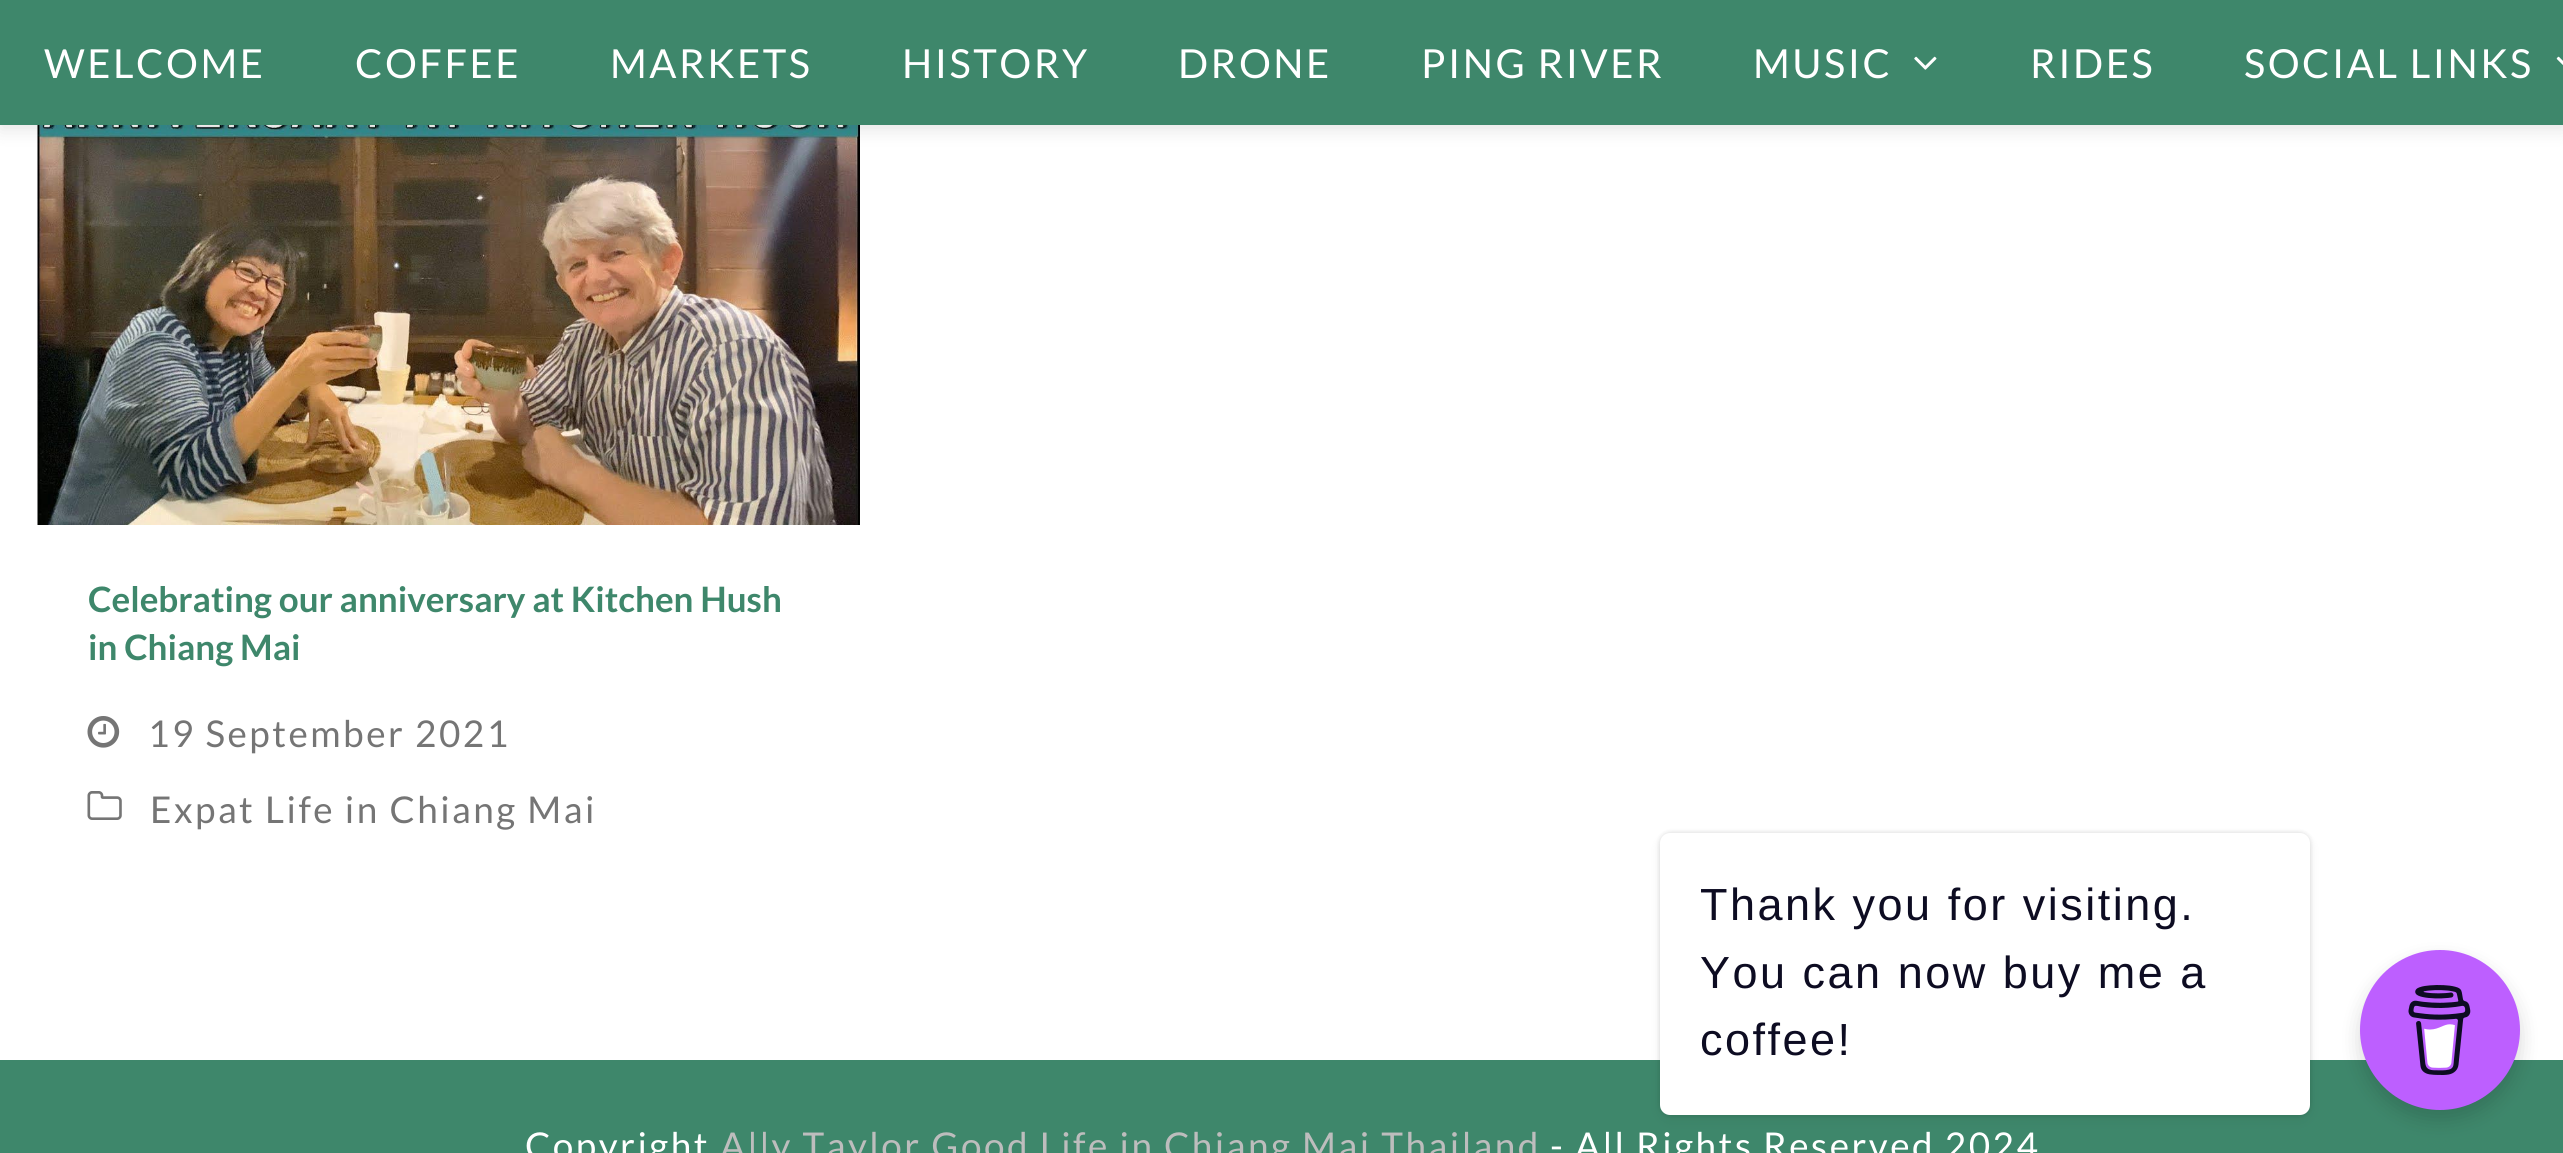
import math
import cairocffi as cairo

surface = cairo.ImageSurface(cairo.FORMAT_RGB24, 2563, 1153)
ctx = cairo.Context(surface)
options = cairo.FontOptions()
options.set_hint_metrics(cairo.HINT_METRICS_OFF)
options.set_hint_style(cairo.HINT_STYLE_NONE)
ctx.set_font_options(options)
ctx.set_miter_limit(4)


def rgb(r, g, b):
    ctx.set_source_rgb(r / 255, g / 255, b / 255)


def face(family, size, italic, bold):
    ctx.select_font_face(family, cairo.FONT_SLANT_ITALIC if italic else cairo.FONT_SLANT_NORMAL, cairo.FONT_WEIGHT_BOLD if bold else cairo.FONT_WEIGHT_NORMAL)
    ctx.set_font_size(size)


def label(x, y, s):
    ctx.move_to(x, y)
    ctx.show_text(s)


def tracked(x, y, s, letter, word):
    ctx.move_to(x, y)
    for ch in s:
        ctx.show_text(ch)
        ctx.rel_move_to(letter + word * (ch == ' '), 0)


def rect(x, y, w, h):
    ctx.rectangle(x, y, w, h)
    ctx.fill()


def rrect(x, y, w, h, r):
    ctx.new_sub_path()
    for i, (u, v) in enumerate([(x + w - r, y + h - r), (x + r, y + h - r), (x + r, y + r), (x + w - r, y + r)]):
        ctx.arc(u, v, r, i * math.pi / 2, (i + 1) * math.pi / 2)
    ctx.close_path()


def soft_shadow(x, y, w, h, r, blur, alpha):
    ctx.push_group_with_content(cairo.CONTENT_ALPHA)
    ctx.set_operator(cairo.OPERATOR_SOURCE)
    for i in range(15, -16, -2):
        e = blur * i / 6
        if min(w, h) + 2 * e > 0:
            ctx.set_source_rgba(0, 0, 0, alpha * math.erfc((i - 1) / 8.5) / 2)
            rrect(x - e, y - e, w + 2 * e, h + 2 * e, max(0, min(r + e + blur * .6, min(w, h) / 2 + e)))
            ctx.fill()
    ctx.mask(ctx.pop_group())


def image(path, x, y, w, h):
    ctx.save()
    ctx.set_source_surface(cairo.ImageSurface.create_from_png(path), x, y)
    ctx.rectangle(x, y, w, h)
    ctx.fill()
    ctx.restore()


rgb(255, 255, 255)
ctx.paint()
image('image2.png', 37, 125, 823, 400)
rgb(0, 0, 0)
soft_shadow(0, 5, 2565, 125, 0, 9, 0.1)
rgb(62, 135, 107)
rect(0, 0, 2563, 125)
face('Lato', 40, 0, 0)
rgb(255, 255, 255)
tracked(44, 78, 'WELCOME', 2.5, 0)
tracked(355, 78, 'COFFEE', 2.5, 0)
tracked(610, 78, 'MARKETS', 2.5, 0)
tracked(902, 78, 'HISTORY', 2.5, 0)
tracked(1178, 78, 'DRONE', 2.5, 0)
tracked(1421, 78, 'PING RIVER', 2.5, 0)
tracked(1753, 78, 'MUSIC', 2.5, 0)
image('image0.png', 1914, 56, 23, 14)
tracked(2030, 78, 'RIDES', 2.5, 0)
tracked(2244, 78, 'SOCIAL LINKS', 2.5, 0)
image('image1.png', 2556, 56, 7, 9)
face('Lato', 35, 0, 1)
rgb(62, 135, 107)
label(88, 612, 'Celebrating our anniversary at Kitchen Hush')
label(88, 660, 'in Chiang Mai')
image('image3.png', 87, 716, 33, 32)
face('Lato', 36.9, 0, 0)
rgb(117, 117, 117)
tracked(148, 747, '19 September 2021', 2.5, 0)
image('image4.png', 87, 791, 35, 29)
tracked(150, 823, 'Expat Life in Chiang Mai', 2.5, 0)
rgb(62, 135, 107)
rect(0, 1060, 2563, 93)
rgb(255, 255, 255)
tracked(525, 1159, 'Copyright', 2.5, 0)
rgb(189, 189, 189)
tracked(720, 1159, 'Ally Taylor Good Life in Chiang Mai Thailand', 2.5, 0)
rgb(255, 255, 255)
tracked(1550, 1159, '- All Rights Reserved 2024', 2.5, 0)
rgb(0, 0, 0)
soft_shadow(1660, 833, 650, 282, 10, 2.5, 0.15)
soft_shadow(1660, 838, 650, 282, 10, 6, 0.05)
rgb(255, 255, 255)
rrect(1660, 833, 650, 282, 10)
ctx.fill()
face('Liberation Sans', 45, 0, 0)
rgb(13, 12, 34)
tracked(1700, 920, 'Thank you for visiting.', 2.5, 0)
tracked(1700, 988, 'You can now buy me a', 2.5, 0)
tracked(1700, 1055, 'coffee!', 2.5, 0)
rgb(0, 0, 0)
soft_shadow(2360, 960, 160, 160, 80, 10, 0.15)
rgb(189, 95, 255)
ctx.arc(2440, 1030, 80, 0, 2 * math.pi)
ctx.fill()
image('image5.png', 2408, 985, 63, 90)
surface.write_to_png('render.png')
